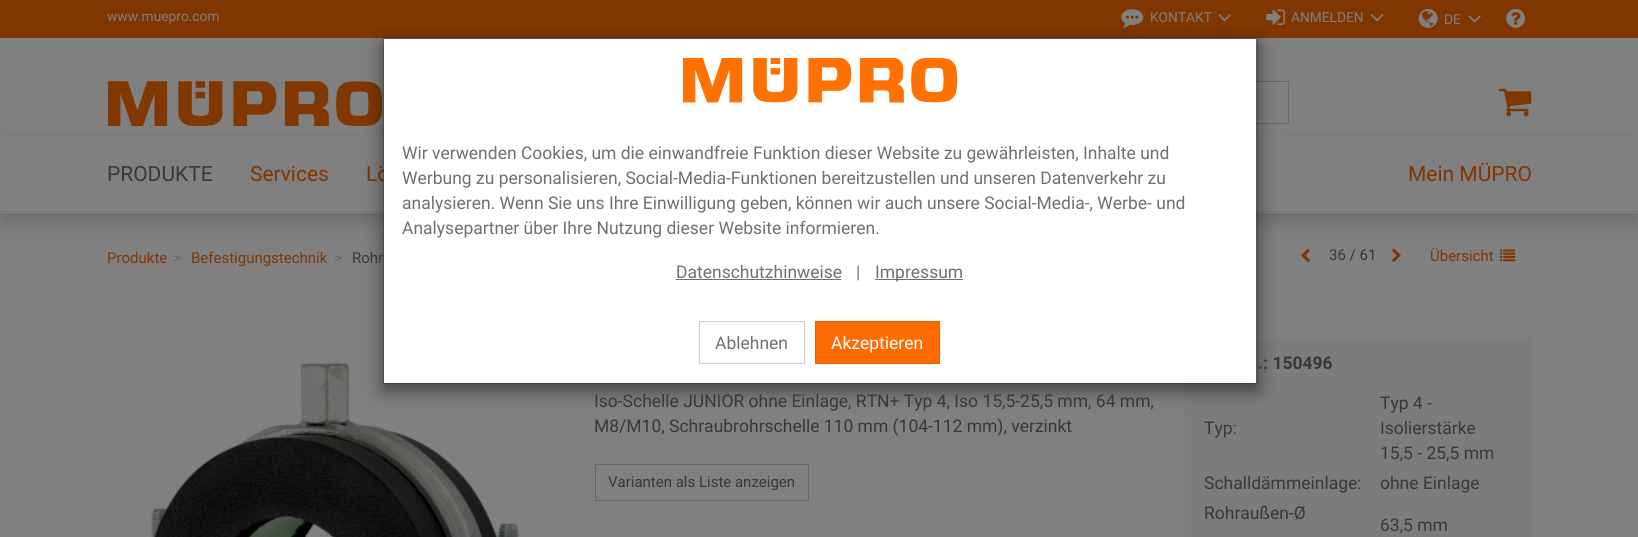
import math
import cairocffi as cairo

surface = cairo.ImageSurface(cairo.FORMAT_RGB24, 1638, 537)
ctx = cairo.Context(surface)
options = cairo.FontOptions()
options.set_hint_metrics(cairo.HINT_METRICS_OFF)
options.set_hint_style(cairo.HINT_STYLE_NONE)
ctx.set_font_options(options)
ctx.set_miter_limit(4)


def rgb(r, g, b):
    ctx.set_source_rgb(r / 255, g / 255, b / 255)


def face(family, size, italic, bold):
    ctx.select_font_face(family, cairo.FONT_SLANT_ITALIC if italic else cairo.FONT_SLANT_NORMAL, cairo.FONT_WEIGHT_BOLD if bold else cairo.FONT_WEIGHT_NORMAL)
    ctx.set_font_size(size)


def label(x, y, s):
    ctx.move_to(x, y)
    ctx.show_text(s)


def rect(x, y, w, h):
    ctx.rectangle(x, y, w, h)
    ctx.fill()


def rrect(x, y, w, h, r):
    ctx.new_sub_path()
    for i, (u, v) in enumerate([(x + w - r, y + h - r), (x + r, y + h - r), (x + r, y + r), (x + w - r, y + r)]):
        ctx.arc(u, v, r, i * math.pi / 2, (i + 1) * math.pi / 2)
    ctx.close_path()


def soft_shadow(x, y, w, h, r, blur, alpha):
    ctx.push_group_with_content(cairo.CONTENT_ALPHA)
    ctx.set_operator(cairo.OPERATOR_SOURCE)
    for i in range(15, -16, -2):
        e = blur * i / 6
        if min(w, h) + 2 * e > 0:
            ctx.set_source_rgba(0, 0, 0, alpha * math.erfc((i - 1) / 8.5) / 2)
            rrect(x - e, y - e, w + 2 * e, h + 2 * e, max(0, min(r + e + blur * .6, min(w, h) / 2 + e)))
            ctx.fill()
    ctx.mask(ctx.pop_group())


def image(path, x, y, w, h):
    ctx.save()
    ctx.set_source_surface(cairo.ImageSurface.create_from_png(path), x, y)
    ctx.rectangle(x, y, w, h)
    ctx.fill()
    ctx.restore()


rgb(128, 128, 128)
ctx.paint()
rgb(128, 54, 0)
rect(0, 0, 1638, 38)
face('Roboto', 13.75, 0, 0)
rgb(128, 128, 128)
label(107, 21, 'www.muepro.com')
image('image0.png', 1121, 9, 23, 19)
label(1150, 22, 'KONTAKT')
image('image1.png', 1218, 14, 13, 8)
image('image2.png', 1266, 9, 20, 16)
label(1291, 22, 'ANMELDEN')
image('image3.png', 1371, 14, 13, 8)
image('image4.png', 1418, 9, 20, 19)
label(1444, 24, 'DE')
image('image5.png', 1468, 15, 13, 8)
image('image6.png', 1506, 9, 20, 19)
image('image10.png', 1301, 248, 9, 14)
image('image11.png', 1392, 248, 9, 14)
image('image12.png', 1500, 249, 15, 13)
ctx.save()
ctx.set_fill_rule(cairo.FILL_RULE_EVEN_ODD)
ctx.new_path()
ctx.move_to(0, 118)
ctx.line_to(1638, 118)
ctx.line_to(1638, 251)
ctx.line_to(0, 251)
ctx.close_path()
ctx.move_to(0, 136)
ctx.line_to(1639, 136)
ctx.line_to(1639, 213)
ctx.line_to(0, 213)
ctx.close_path()
ctx.clip()
rgb(0, 0, 0)
soft_shadow(0, 146, 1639, 77, 0, 9, 0.16)
ctx.restore()
image('image7.png', 108, 81, 275, 45)
ctx.rectangle(520.5, 81.5, 768, 42)
rgb(102, 102, 102)
ctx.set_line_width(1)
ctx.stroke()
image('image8.png', 1498, 88, 34, 29)
ctx.set_source_rgba(0.502, 0.502, 0.502, 0.96)
rect(0, 212, 1638, 1)
rgb(119, 119, 119)
rect(0, 211, 1638, 1)
face('Roboto', 21, 0, 0)
rgb(56, 56, 56)
label(107, 181, 'PRODUKTE')
rgb(128, 54, 0)
label(250, 181, 'Services')
label(366, 181, 'Lö')
label(1408, 181, 'Mein MÜPRO')
image('image13.png', 150, 362, 370, 175)
rgb(124, 124, 124)
rect(1185, 338, 348, 199)
rgb(0, 0, 0)
soft_shadow(383, 44, 875, 346, 0, 9.5, 0.5)
rgb(255, 255, 255)
rect(384, 39, 872, 344)
ctx.rectangle(383.5, 38.5, 874, 345)
ctx.set_source_rgba(0, 0, 0, 0.2)
ctx.stroke()
image('image9.png', 683, 58, 275, 45)
face('Roboto', 17.5, 0, 0)
rgb(112, 112, 112)
label(402, 159, 'Wir verwenden Cookies, um die einwandfreie Funktion dieser Website zu gewährleisten, Inhalte und')
label(402, 184, 'Werbung zu personalisieren, Social-Media-Funktionen bereitzustellen und unseren Datenverkehr zu')
label(402, 209, 'analysieren. Wenn Sie uns Ihre Einwilligung geben, können wir auch unsere Social-Media-, Werbe- und')
label(402, 234, 'Analysepartner über Ihre Nutzung dieser Website informieren.')
label(676, 278, 'Datenschutzhinweise')
rect(676, 279, 165, 1)
label(856, 278, '|')
rect(875, 279, 88, 1)
label(875, 278, 'Impressum')
ctx.rectangle(699.5, 321.5, 105, 42)
rgb(204, 204, 204)
ctx.stroke()
rgb(112, 112, 112)
label(715, 349, 'Ablehnen')
rgb(255, 107, 0)
ctx.rectangle(815.5, 321.5, 124, 42)
ctx.fill_preserve()
rgb(230, 96, 0)
ctx.stroke()
rgb(255, 255, 255)
label(831, 349, 'Akzeptieren')
face('Roboto', 15, 0, 0)
rgb(128, 54, 0)
label(107, 263, 'Produkte')
rgb(102, 102, 102)
label(173, 263, '>')
rgb(128, 54, 0)
label(191, 263, 'Befestigungstechnik')
rgb(102, 102, 102)
label(334, 263, '>')
rgb(56, 56, 56)
label(352, 263, 'Rohr')
label(1329, 260, '36 / 61')
rgb(128, 54, 0)
label(1430, 261, 'Übersicht')
face('Roboto', 17.5, 0, 0)
rgb(56, 56, 56)
label(594, 407, 'Iso-Schelle JUNIOR ohne Einlage, RTN+ Typ 4, Iso 15,5-25,5 mm, 64 mm,')
label(594, 432, 'M8/M10, Schraubrohrschelle 110 mm (104-112 mm), verzinkt')
ctx.rectangle(595.5, 464.5, 213, 36)
rgb(102, 102, 102)
ctx.stroke()
face('Roboto', 15, 0, 0)
rgb(56, 56, 56)
label(608, 487, 'Varianten als Liste anzeigen')
face('Roboto', 17.5, 0, 1)
label(1258, 369, '.: 150496')
face('Roboto', 17.5, 0, 0)
label(1204, 434, 'Typ:')
label(1380, 409, 'Typ 4 -')
label(1380, 434, 'Isolierstärke')
label(1380, 459, '15,5 - 25,5 mm')
label(1204, 489, 'Schalldämmeinlage:')
label(1380, 489, 'ohne Einlage')
label(1204, 519, 'Rohraußen-Ø')
label(1380, 531, '63,5 mm')
surface.write_to_png('render.png')
